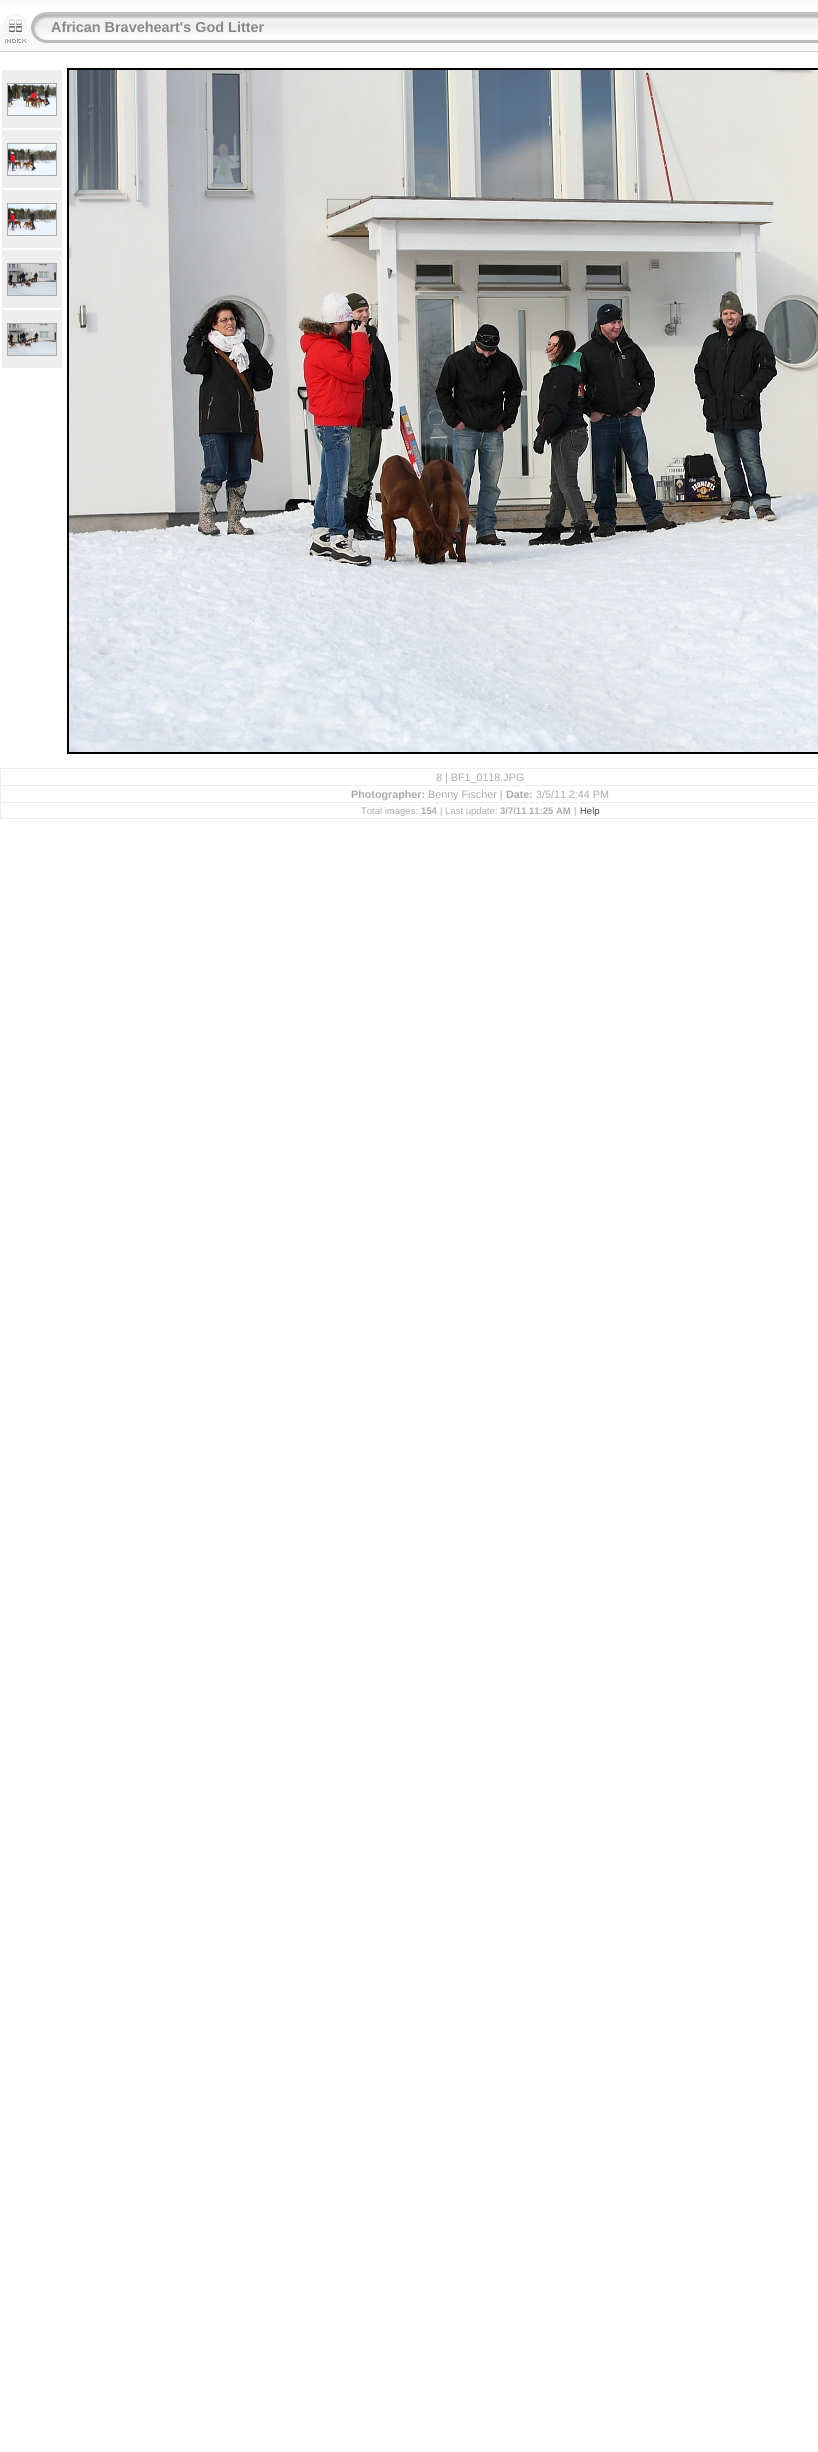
import math
import cairocffi as cairo

surface = cairo.ImageSurface(cairo.FORMAT_RGB24, 818, 2452)
ctx = cairo.Context(surface)
options = cairo.FontOptions()
options.set_hint_metrics(cairo.HINT_METRICS_OFF)
options.set_hint_style(cairo.HINT_STYLE_NONE)
ctx.set_font_options(options)
ctx.set_miter_limit(4)


def rgb(r, g, b):
    ctx.set_source_rgb(r / 255, g / 255, b / 255)


def face(family, size, italic, bold):
    ctx.select_font_face(family, cairo.FONT_SLANT_ITALIC if italic else cairo.FONT_SLANT_NORMAL, cairo.FONT_WEIGHT_BOLD if bold else cairo.FONT_WEIGHT_NORMAL)
    ctx.set_font_size(size)


def label(x, y, s):
    ctx.move_to(x, y)
    ctx.show_text(s)


def rect(x, y, w, h):
    ctx.rectangle(x, y, w, h)
    ctx.fill()


def image(path, x, y, w, h):
    ctx.save()
    ctx.set_source_surface(cairo.ImageSurface.create_from_png(path), x, y)
    ctx.rectangle(x, y, w, h)
    ctx.fill()
    ctx.restore()


rgb(255, 255, 255)
ctx.paint()
image('image0.png', 0, 0, 818, 52)
image('image1.png', 4, 14, 23, 29)
image('image2.png', 31, 12, 20, 31)
image('image3.png', 51, 12, 767, 31)
face('Liberation Sans', 14.4, 0, 1)
rgb(136, 136, 136)
label(51, 32, 'African Braveheart\'s God Litter')
rgb(238, 238, 238)
rect(2, 70, 60, 58)
ctx.rectangle(7.5, 83.5, 49, 32)
rgb(170, 170, 170)
ctx.set_line_width(1)
ctx.stroke()
image('image4.png', 8, 84, 48, 31)
rgb(238, 238, 238)
rect(2, 130, 60, 58)
ctx.rectangle(7.5, 143.5, 49, 32)
rgb(170, 170, 170)
ctx.stroke()
image('image5.png', 8, 144, 48, 31)
rgb(238, 238, 238)
rect(2, 190, 60, 58)
ctx.rectangle(7.5, 203.5, 49, 32)
rgb(170, 170, 170)
ctx.stroke()
image('image6.png', 8, 204, 48, 31)
rgb(238, 238, 238)
rect(2, 250, 60, 58)
ctx.rectangle(7.5, 263.5, 49, 32)
rgb(170, 170, 170)
ctx.stroke()
image('image7.png', 8, 264, 48, 31)
rgb(238, 238, 238)
rect(2, 310, 60, 58)
ctx.rectangle(7.5, 323.5, 49, 32)
rgb(170, 170, 170)
ctx.stroke()
image('image8.png', 8, 324, 48, 31)
ctx.rectangle(68, 69, 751, 684)
rgb(0, 0, 0)
ctx.set_line_width(2)
ctx.stroke()
image('image9.png', 69, 70, 749, 682)
rgb(238, 238, 238)
rect(0, 768, 818, 1)
rect(0, 818, 818, 1)
rect(0, 768, 1, 51)
face('Liberation Sans', 10.75, 0, 0)
rgb(170, 170, 170)
label(436, 781, '8 | BF1_0118.JPG')
rgb(238, 238, 238)
rect(0, 785, 818, 1)
face('Liberation Sans', 10.75, 0, 1)
rgb(170, 170, 170)
label(351, 798, 'Photographer:')
face('Liberation Sans', 10.75, 0, 0)
label(428, 798, 'Benny Fischer |')
face('Liberation Sans', 10.75, 0, 1)
label(506, 798, 'Date:')
face('Liberation Sans', 10.75, 0, 0)
label(536, 798, '3/5/11 2:44 PM')
rgb(238, 238, 238)
rect(0, 802, 818, 1)
face('Liberation Sans', 9.5, 0, 0)
rgb(170, 170, 170)
label(361, 814, 'Total images:')
face('Liberation Sans', 9.5, 0, 1)
label(421, 814, '154')
face('Liberation Sans', 9.5, 0, 0)
label(440, 814, '| Last update:')
face('Liberation Sans', 9.5, 0, 1)
label(500, 814, '3/7/11 11:25 AM')
face('Liberation Sans', 9.5, 0, 0)
label(574, 814, '|')
rgb(68, 68, 68)
label(580, 814, 'Help')
surface.write_to_png('render.png')
